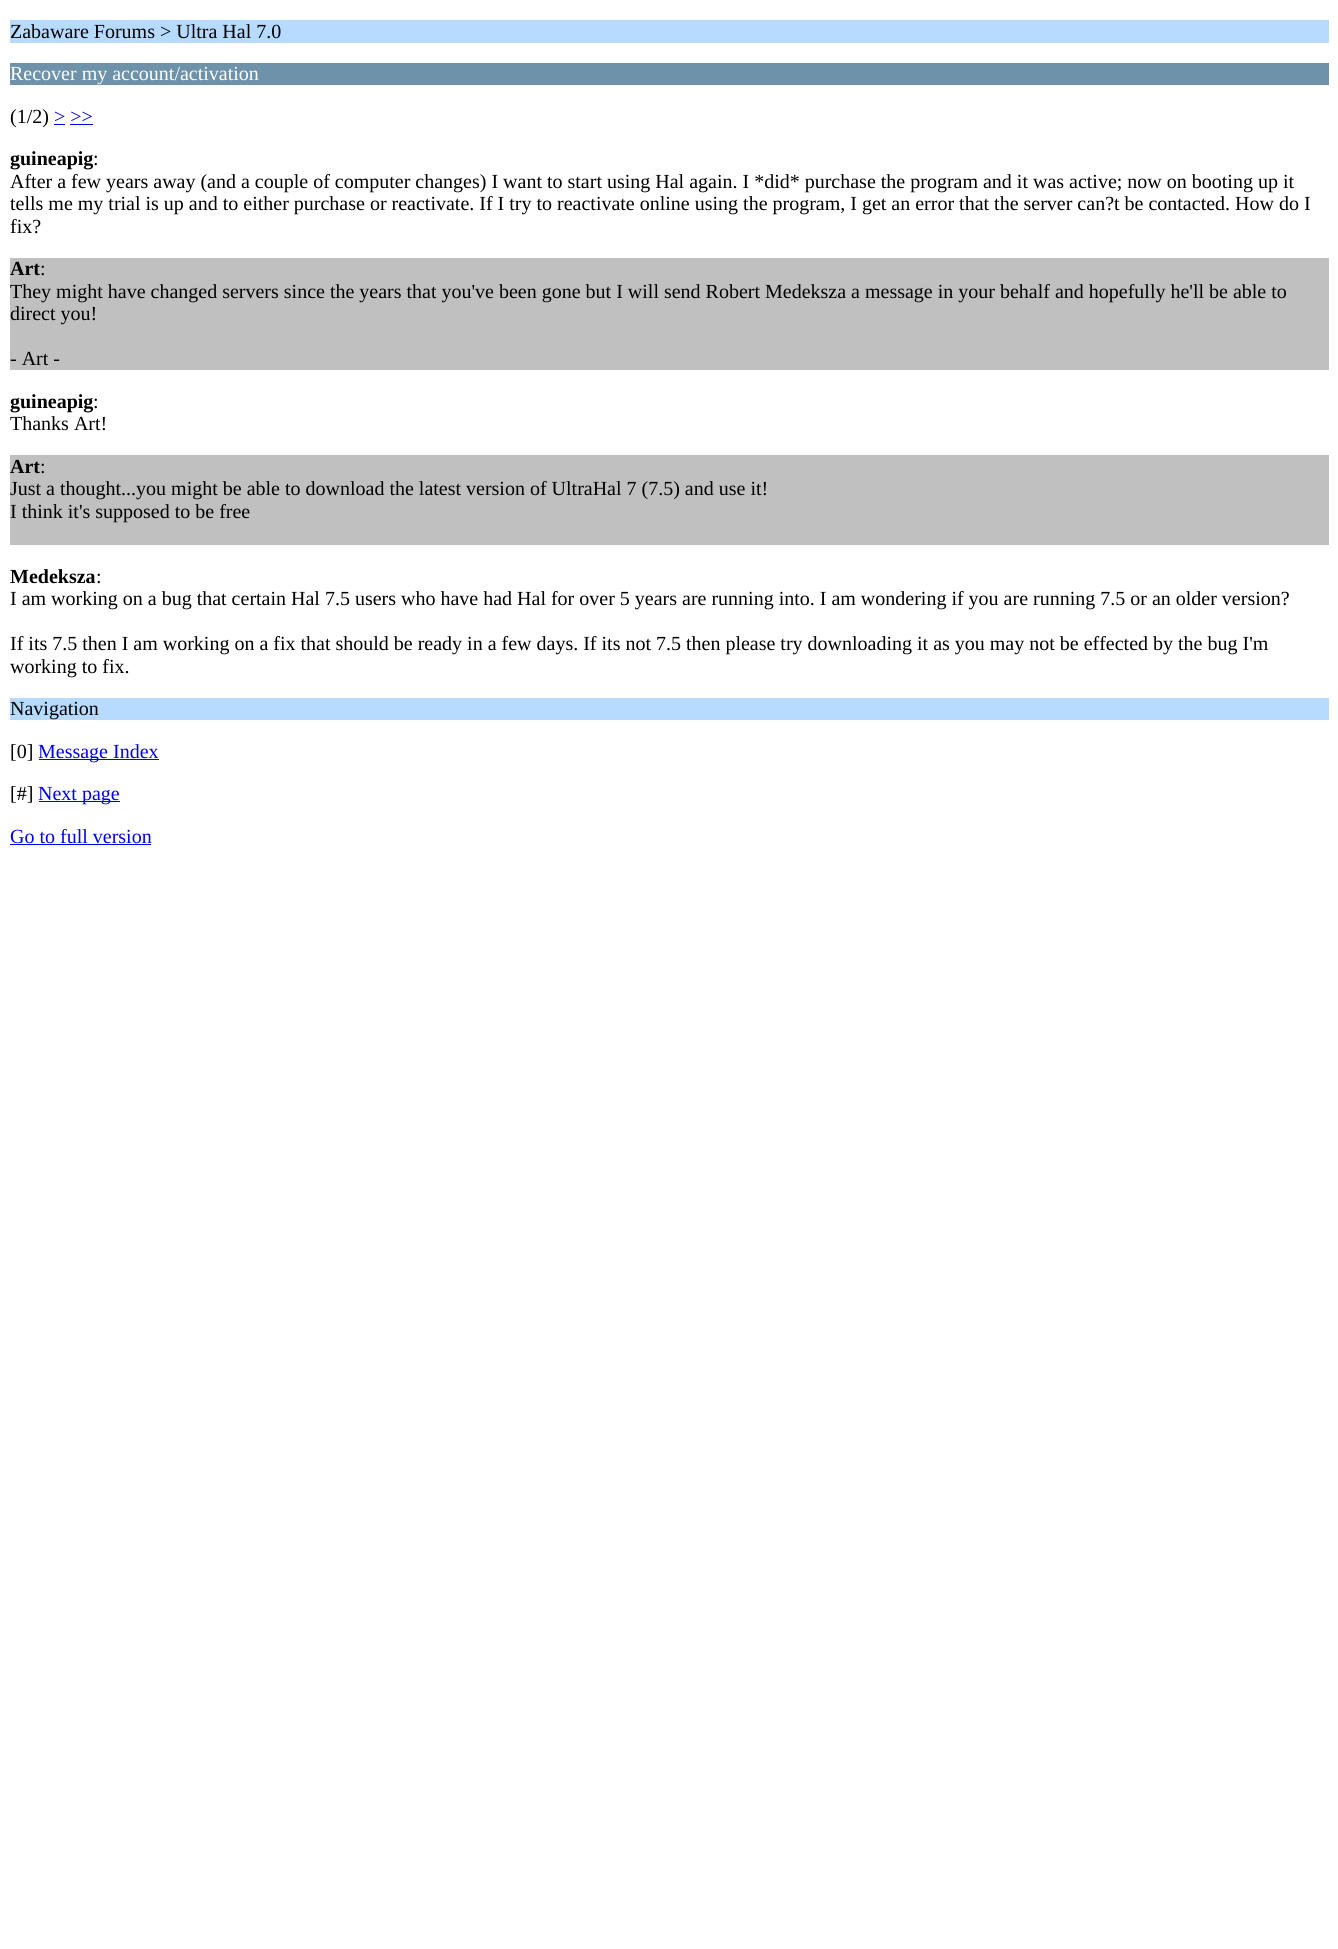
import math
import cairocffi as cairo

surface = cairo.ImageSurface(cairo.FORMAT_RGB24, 1338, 1949)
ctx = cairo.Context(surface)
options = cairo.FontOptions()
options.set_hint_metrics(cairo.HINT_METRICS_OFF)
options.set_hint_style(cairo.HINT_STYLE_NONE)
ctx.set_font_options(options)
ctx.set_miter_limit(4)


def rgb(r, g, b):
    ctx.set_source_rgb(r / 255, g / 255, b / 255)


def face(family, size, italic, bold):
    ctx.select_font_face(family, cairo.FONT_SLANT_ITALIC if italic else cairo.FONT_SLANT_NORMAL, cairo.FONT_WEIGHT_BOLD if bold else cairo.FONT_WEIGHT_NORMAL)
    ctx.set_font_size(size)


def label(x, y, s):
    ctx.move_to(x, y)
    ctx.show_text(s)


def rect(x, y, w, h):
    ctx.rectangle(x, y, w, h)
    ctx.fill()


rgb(255, 255, 255)
ctx.paint()
rgb(182, 219, 255)
rect(10, 20, 1319, 23)
face('Liberation Serif', 20, 0, 0)
rgb(0, 0, 0)
label(10, 38, 'Zabaware Forums > Ultra Hal 7.0')
rgb(109, 146, 170)
rect(10, 63, 1319, 22)
rgb(255, 255, 255)
label(10, 80, 'Recover my account/activation')
rgb(0, 0, 0)
label(10, 123, '(1/2)')
rgb(0, 0, 238)
label(54, 123, '> >>')
rect(54, 124, 11, 1)
rect(70, 124, 23, 1)
face('Liberation Serif', 20, 0, 1)
rgb(0, 0, 0)
label(10, 165, 'guineapig')
face('Liberation Serif', 20, 0, 0)
label(93, 165, ':')
label(10, 188, 'After a few years away (and a couple of computer changes) I want to start using Hal again. I *did* purchase the program and it was active; now on booting up it')
label(10, 210, 'tells me my trial is up and to either purchase or reactivate. If I try to reactivate online using the program, I get an error that the server can?t be contacted. How do I')
label(10, 233, 'fix?')
rgb(192, 192, 192)
rect(10, 258, 1319, 112)
face('Liberation Serif', 20, 0, 1)
rgb(0, 0, 0)
label(10, 275, 'Art')
face('Liberation Serif', 20, 0, 0)
label(40, 275, ':')
label(10, 298, 'They might have changed servers since the years that you\'ve been gone but I will send Robert Medeksza a message in your behalf and hopefully he\'ll be able to')
label(10, 320, 'direct you!')
label(10, 365, '- Art -')
face('Liberation Serif', 20, 0, 1)
label(10, 408, 'guineapig')
face('Liberation Serif', 20, 0, 0)
label(93, 408, ':')
label(10, 430, 'Thanks Art!')
rgb(192, 192, 192)
rect(10, 455, 1319, 90)
face('Liberation Serif', 20, 0, 1)
rgb(0, 0, 0)
label(10, 473, 'Art')
face('Liberation Serif', 20, 0, 0)
label(40, 473, ':')
label(10, 495, 'Just a thought...you might be able to download the latest version of UltraHal 7 (7.5) and use it!')
label(10, 518, 'I think it\'s supposed to be free')
face('Liberation Serif', 20, 0, 1)
label(10, 583, 'Medeksza')
face('Liberation Serif', 20, 0, 0)
label(96, 583, ':')
label(10, 605, 'I am working on a bug that certain Hal 7.5 users who have had Hal for over 5 years are running into. I am wondering if you are running 7.5 or an older version?')
label(10, 650, 'If its 7.5 then I am working on a fix that should be ready in a few days. If its not 7.5 then please try downloading it as you may not be effected by the bug I\'m')
label(10, 673, 'working to fix.')
rgb(182, 219, 255)
rect(10, 698, 1319, 22)
rgb(0, 0, 0)
label(10, 715, 'Navigation')
label(10, 758, '[0]')
rgb(0, 0, 238)
rect(39, 759, 120, 1)
label(38, 758, 'Message Index')
rgb(0, 0, 0)
label(10, 800, '[#]')
rgb(0, 0, 238)
rect(39, 801, 81, 1)
label(38, 800, 'Next page')
label(10, 843, 'Go to full version')
rect(10, 844, 141, 1)
surface.write_to_png('render.png')
